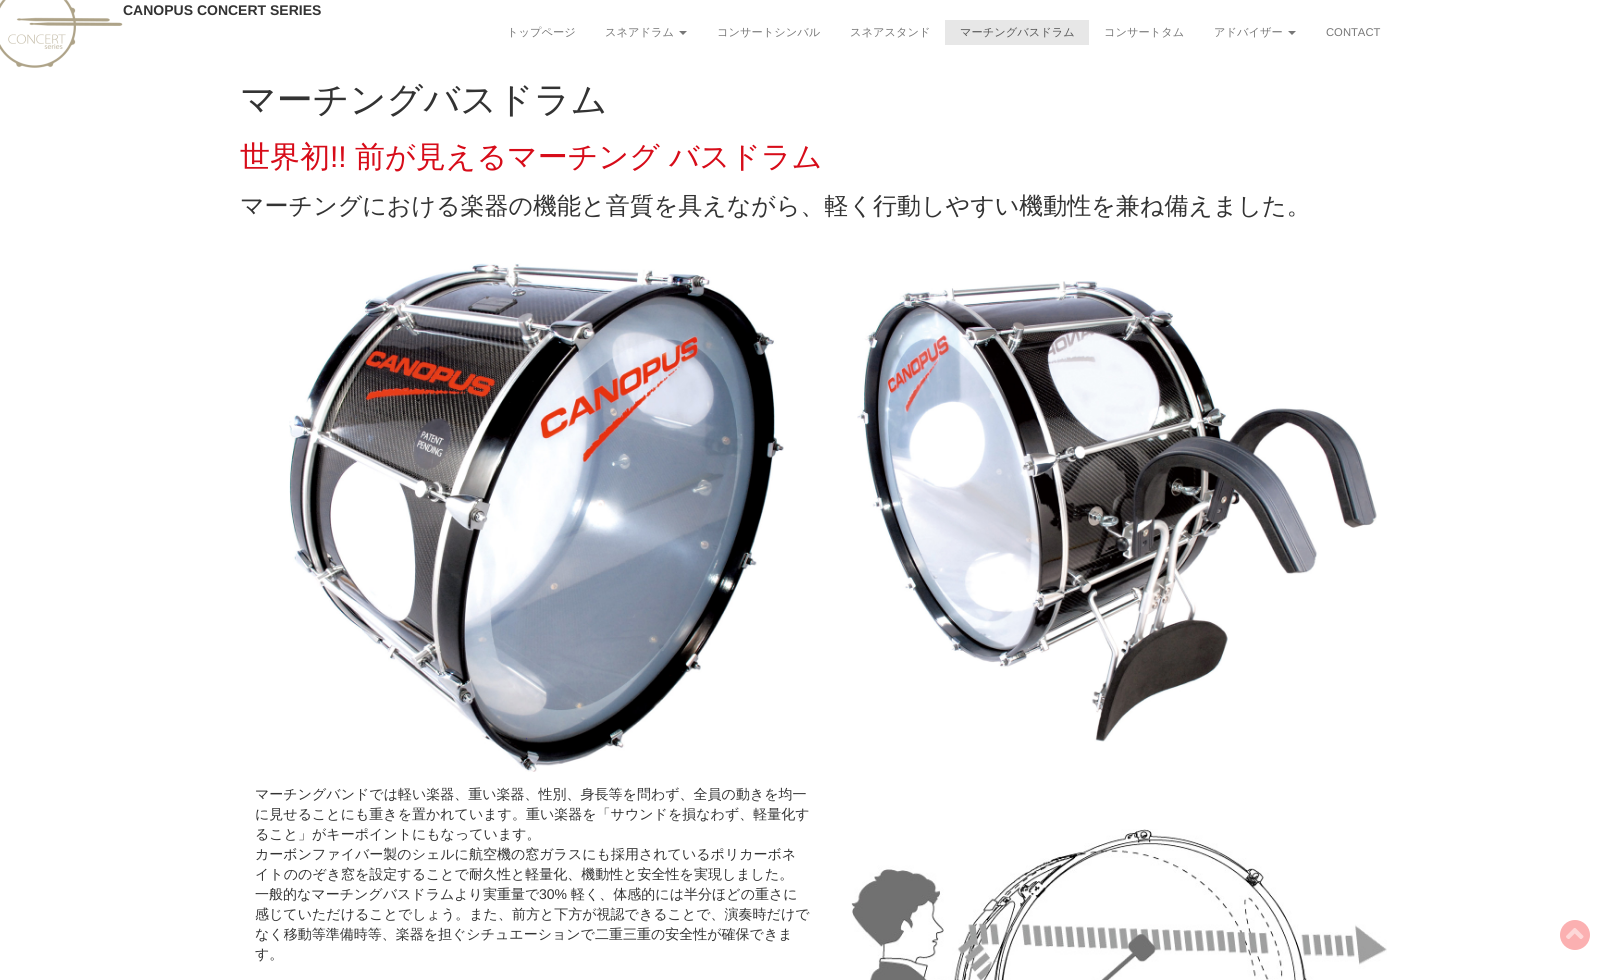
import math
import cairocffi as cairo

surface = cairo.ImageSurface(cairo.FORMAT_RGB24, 1620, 980)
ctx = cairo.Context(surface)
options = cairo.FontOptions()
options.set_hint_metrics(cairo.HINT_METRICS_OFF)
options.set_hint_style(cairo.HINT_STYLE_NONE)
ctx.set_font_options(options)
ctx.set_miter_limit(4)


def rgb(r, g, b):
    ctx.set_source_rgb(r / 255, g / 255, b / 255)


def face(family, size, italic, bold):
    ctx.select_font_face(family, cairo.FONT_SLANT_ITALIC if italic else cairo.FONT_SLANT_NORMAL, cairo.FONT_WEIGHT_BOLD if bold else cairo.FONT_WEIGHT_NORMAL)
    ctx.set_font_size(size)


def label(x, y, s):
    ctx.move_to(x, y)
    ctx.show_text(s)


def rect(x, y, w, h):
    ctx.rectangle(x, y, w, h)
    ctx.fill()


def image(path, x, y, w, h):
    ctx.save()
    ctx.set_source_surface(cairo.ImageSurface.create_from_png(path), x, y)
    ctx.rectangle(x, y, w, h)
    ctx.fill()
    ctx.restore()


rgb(255, 255, 255)
ctx.paint()
image('image0.png', 0, 0, 123, 68)
face('Liberation Sans', 14, 0, 1)
rgb(51, 51, 51)
label(123, 15, 'CANOPUS CONCERT SERIES')
face('WenQuanYi Zen Hei Medium', 11.25, 0, 0)
rgb(119, 119, 119)
label(507, 36, 'トップページ')
label(605, 36, 'スネアドラム')
ctx.new_path()
ctx.move_to(679, 31)
ctx.line_to(687, 31)
ctx.line_to(683, 35)
ctx.close_path()
ctx.fill()
label(717, 36, 'コンサートシンバル')
label(850, 36, 'スネアスタンド')
rgb(231, 231, 231)
rect(945, 20, 144, 25)
rgb(85, 85, 85)
label(960, 36, 'マーチングバスドラム')
rgb(119, 119, 119)
label(1104, 36, 'コンサートタム')
label(1214, 36, 'アドバイザー')
ctx.new_path()
ctx.move_to(1288, 31)
ctx.line_to(1296, 31)
ctx.line_to(1292, 35)
ctx.close_path()
ctx.fill()
face('Liberation Sans', 11.25, 0, 0)
label(1326, 36, 'CONTACT')
face('WenQuanYi Zen Hei Medium', 36, 0, 0)
rgb(51, 51, 51)
label(240, 112, 'マーチングバスドラム')
face('WenQuanYi Zen Hei Medium', 30, 0, 0)
rgb(215, 12, 25)
label(240, 167, '世界初')
face('Liberation Sans', 30, 0, 0)
label(330, 167, '!!')
face('WenQuanYi Zen Hei Medium', 30, 0, 0)
label(355, 167, '前が見えるマーチング バスドラム')
face('WenQuanYi Zen Hei Medium', 24, 0, 0)
rgb(51, 51, 51)
label(240, 214, 'マーチングにおける楽器の機能と音質を具えながら、軽く行動しやすい機動性を兼ね備えました。')
image('image1.png', 289, 263, 495, 509)
image('image2.png', 857, 281, 520, 461)
face('WenQuanYi Zen Hei Medium', 14, 0, 0)
label(255, 799, 'マーチングバンドでは軽い楽器、重い楽器、性別、身長等を問わず、全員の動きを均一')
label(255, 819, 'に見せることにも重きを置かれています。重い楽器を「サウンドを損なわず、軽量化す')
label(255, 839, 'ること」がキーポイントにもなっています。')
label(255, 859, 'カーボンファイバー製のシェルに航空機の窓ガラスにも採用されているポリカーボネ')
label(255, 879, 'イトののぞき窓を設定することで耐久性と軽量化、機動性と安全性を実現しました。')
label(255, 899, '一般的なマーチングバスドラムより実重量で')
face('Liberation Sans', 14, 0, 0)
label(539, 899, '30%')
face('WenQuanYi Zen Hei Medium', 14, 0, 0)
label(571, 899, '軽く、体感的には半分ほどの重さに')
label(255, 919, '感じていただけることでしょう。また、前方と下方が視認できることで、演奏時だけで')
label(255, 939, 'なく移動等準備時等、楽器を担ぐシチュエーションで二重三重の安全性が確保できま')
label(255, 959, 'す。')
image('image3.png', 851, 829, 536, 151)
rgb(251, 176, 177)
ctx.arc(1575, 935, 15, 0, 2 * math.pi)
ctx.fill()
image('image4.png', 1566, 928, 18, 11)
surface.write_to_png('render.png')
